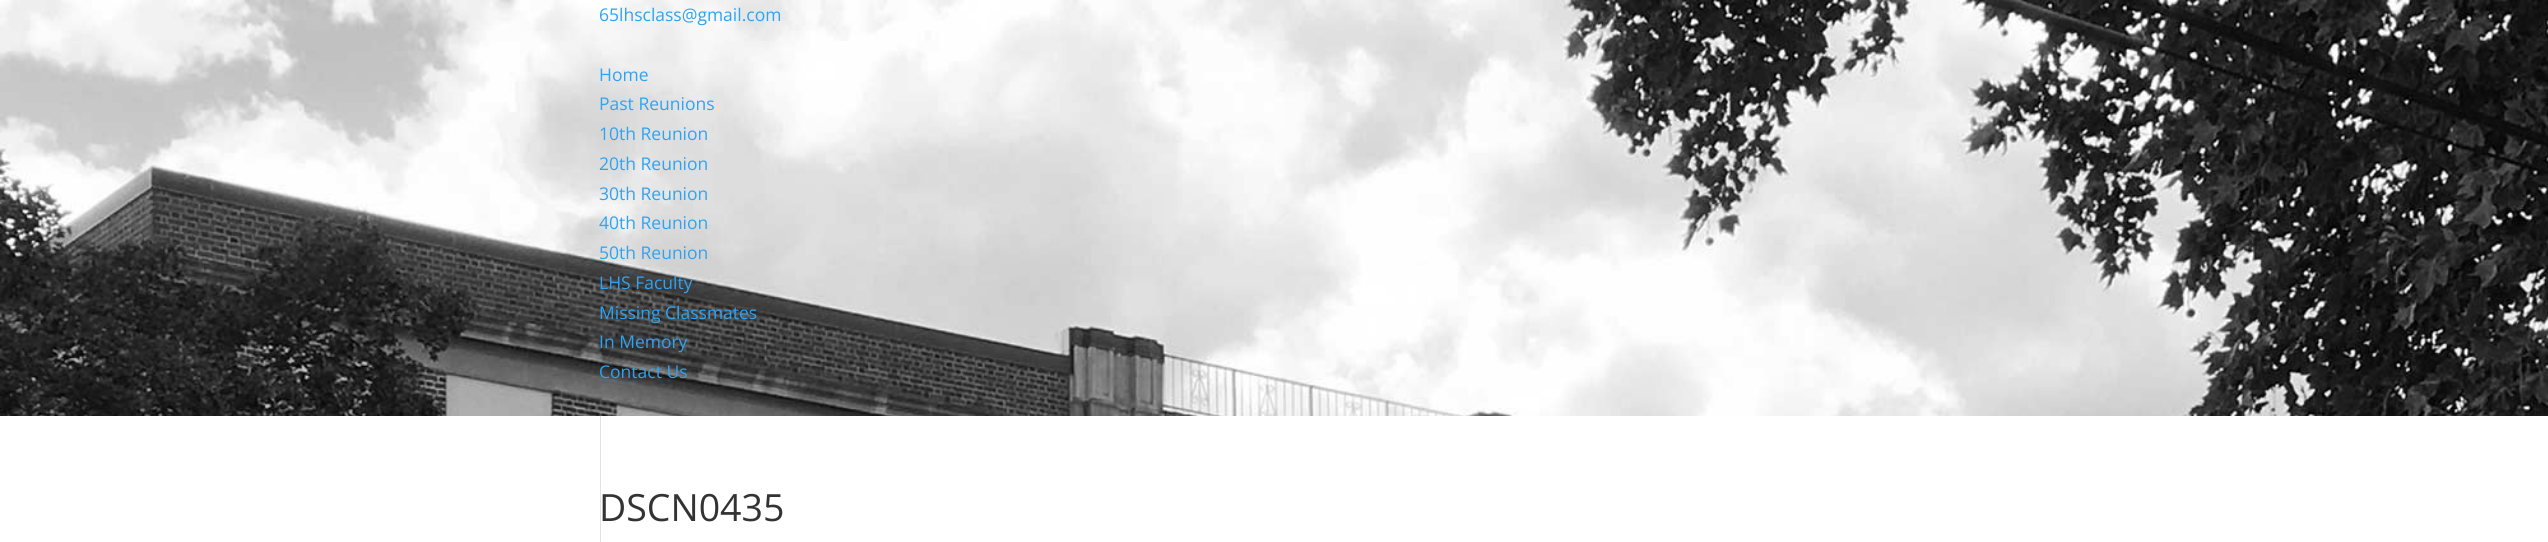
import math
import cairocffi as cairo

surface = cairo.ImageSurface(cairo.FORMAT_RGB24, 2548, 542)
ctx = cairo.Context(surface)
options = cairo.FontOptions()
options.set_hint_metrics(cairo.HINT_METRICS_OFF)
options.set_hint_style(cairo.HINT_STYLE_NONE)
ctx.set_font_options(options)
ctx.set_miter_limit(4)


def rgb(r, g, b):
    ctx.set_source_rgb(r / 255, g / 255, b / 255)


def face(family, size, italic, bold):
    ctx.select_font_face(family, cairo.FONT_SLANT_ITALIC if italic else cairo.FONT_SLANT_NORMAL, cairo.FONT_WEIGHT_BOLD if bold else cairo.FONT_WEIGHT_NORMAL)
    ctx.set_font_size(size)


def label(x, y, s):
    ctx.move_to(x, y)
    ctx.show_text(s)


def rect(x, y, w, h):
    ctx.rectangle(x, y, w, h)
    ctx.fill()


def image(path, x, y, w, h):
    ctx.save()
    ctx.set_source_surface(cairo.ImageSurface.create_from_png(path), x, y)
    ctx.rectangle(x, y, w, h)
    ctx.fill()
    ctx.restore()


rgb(255, 255, 255)
ctx.paint()
image('image0.png', 0, 0, 2548, 416)
face('Open Sans', 17.5, 0, 0)
rgb(46, 163, 242)
label(599, 21, '65lhsclass@gmail.com')
label(599, 81, 'Home')
label(599, 110, 'Past Reunions')
label(599, 140, '10th Reunion')
label(599, 170, '20th Reunion')
label(599, 200, '30th Reunion')
label(599, 229, '40th Reunion')
label(599, 259, '50th Reunion')
label(599, 289, 'LHS Faculty')
label(599, 319, 'Missing Classmates')
label(599, 348, 'In Memory')
label(599, 378, 'Contact Us')
rgb(226, 226, 226)
rect(600, 416, 1, 126)
face('Open Sans', 37.5, 0, 0)
rgb(51, 51, 51)
label(599, 521, 'DSCN0435')
surface.write_to_png('render.png')
